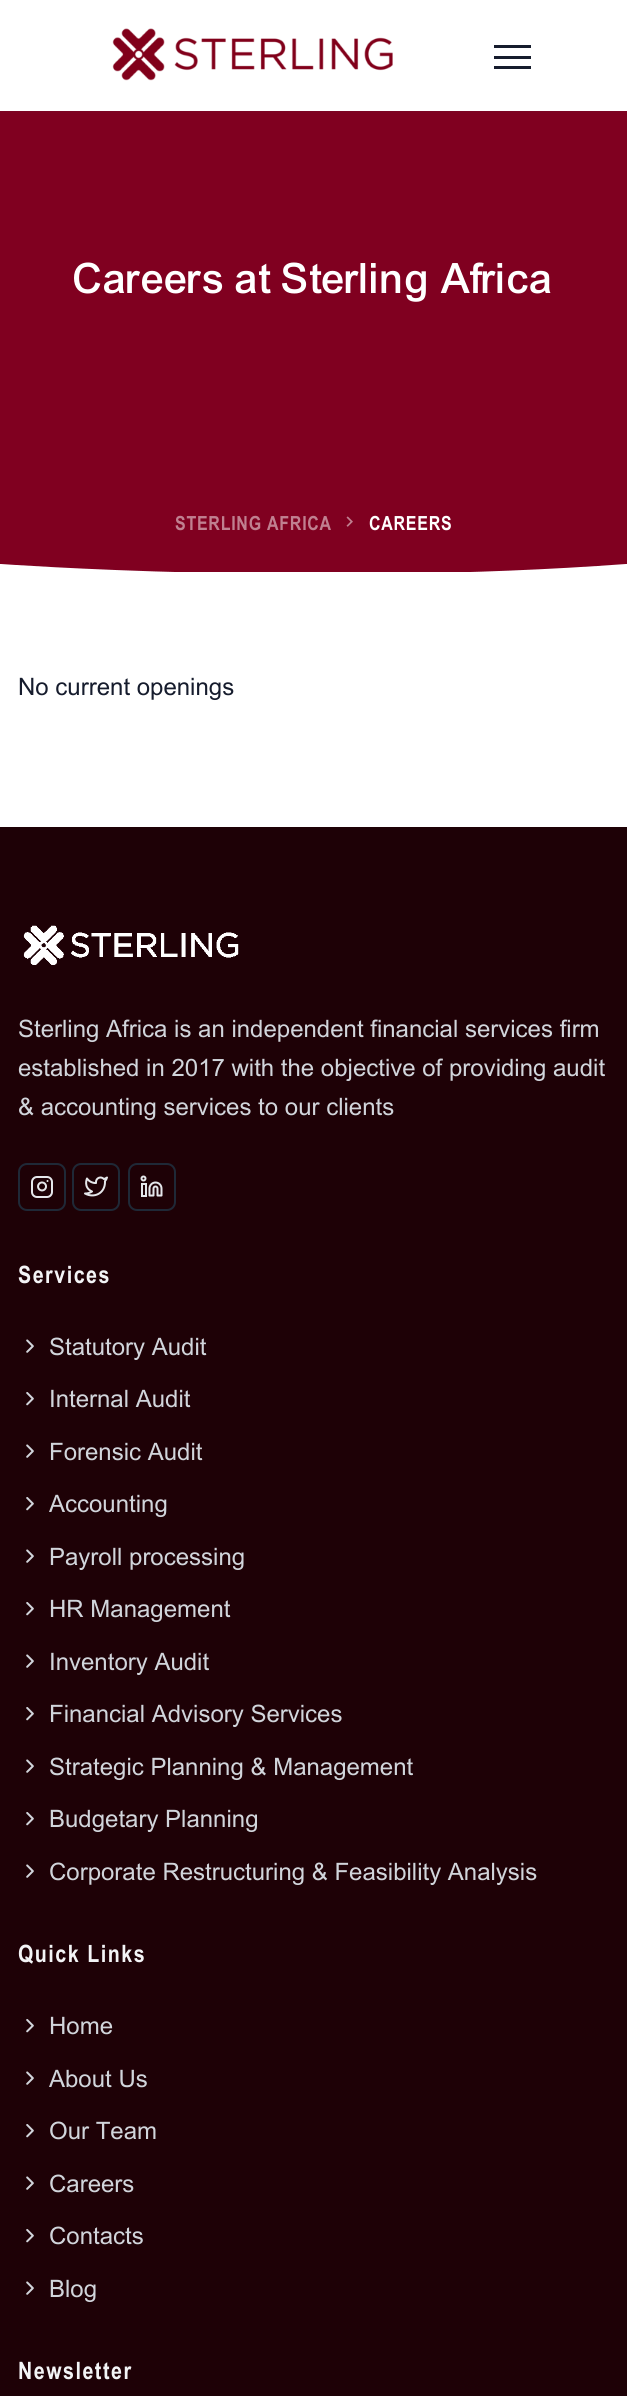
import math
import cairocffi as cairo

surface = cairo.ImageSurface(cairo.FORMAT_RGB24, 627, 2396)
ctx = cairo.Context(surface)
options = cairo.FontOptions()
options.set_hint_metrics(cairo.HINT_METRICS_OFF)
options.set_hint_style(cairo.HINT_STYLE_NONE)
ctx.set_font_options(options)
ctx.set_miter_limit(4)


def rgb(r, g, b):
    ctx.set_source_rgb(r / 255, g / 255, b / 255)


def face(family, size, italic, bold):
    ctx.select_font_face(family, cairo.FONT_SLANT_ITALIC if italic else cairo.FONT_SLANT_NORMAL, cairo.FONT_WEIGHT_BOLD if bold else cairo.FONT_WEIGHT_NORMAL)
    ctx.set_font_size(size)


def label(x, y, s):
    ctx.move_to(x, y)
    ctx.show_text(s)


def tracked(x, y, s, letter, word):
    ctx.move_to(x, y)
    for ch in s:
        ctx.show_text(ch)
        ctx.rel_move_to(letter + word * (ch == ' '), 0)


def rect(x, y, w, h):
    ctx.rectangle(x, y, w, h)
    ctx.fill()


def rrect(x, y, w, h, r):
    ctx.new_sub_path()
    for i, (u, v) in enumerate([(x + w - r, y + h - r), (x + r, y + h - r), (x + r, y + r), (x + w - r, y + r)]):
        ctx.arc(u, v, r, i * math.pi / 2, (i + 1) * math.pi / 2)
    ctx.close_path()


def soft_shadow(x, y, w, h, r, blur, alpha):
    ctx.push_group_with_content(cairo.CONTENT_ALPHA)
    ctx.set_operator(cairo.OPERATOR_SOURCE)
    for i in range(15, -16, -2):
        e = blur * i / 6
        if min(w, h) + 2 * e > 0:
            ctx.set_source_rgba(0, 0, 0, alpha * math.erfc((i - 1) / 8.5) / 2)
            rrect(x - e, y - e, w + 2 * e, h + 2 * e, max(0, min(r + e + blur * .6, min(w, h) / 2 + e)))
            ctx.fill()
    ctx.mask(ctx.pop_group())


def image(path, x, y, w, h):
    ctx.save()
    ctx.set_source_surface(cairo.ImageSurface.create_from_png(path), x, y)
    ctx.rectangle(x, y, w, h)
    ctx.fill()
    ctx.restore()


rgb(255, 255, 255)
ctx.paint()
rgb(128, 0, 32)
rect(0, 111, 627, 461)
rgb(60, 72, 88)
soft_shadow(0, 0, 627, 111, 0, 2, 0.15)
rgb(255, 255, 255)
rect(0, 0, 627, 111)
image('image0.png', 112, 28, 281, 53)
rgb(22, 28, 45)
rect(494, 45, 37, 3)
rect(494, 56, 37, 3)
rect(494, 66, 37, 3)
face('Arial Medium', 45, 0, 0)
rgb(255, 255, 255)
label(74, 293, 'Careers at Sterling Africa')
face('Arial', 19.5, 0, 1)
rgb(192, 128, 144)
tracked(175, 530, 'STERLING AFRICA', 0.75, 0)
image('image1.png', 346, 516, 7, 11)
rgb(255, 255, 255)
tracked(369, 530, 'CAREERS', 0.75, 0)
ctx.save()
ctx.rectangle(0, 564, 627, 11)
ctx.clip()
ctx.new_path()
ctx.move_to(-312, 585)
ctx.line_to(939, 585)
ctx.line_to(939, 564)
ctx.line_to(626, 564)
ctx.curve_to(315, 587, 1, 564, 1, 564)
ctx.line_to(-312, 564)
ctx.close_path()
ctx.fill()
ctx.restore()
face('Arial', 24, 0, 0)
rgb(22, 28, 45)
label(18, 695, 'No current openings')
rgb(30, 1, 6)
rect(0, 827, 627, 1569)
image('image2.png', 23, 925, 216, 40)
rgb(209, 213, 219)
label(18, 1037, 'Sterling Africa is an independent financial services firm')
label(18, 1076, 'established in 2017 with the objective of providing audit')
label(18, 1115, '& accounting services to our clients')
rrect(19, 1164, 46, 46, 8)
rgb(31, 41, 55)
ctx.stroke()
image('image3.png', 31, 1176, 22, 22)
rrect(73, 1164, 46, 46, 8)
ctx.stroke()
image('image4.png', 84, 1176, 24, 21)
rrect(129, 1164, 46, 46, 8)
ctx.stroke()
image('image5.png', 140, 1175, 23, 22)
face('Arial', 24, 0, 1)
rgb(243, 244, 246)
tracked(18, 1283, 'Services', 1.5, 0)
image('image6.png', 26, 1339, 8, 14)
face('Arial', 24, 0, 0)
rgb(209, 213, 219)
label(49, 1355, 'Statutory Audit')
image('image7.png', 26, 1392, 8, 14)
label(49, 1407, 'Internal Audit')
image('image6.png', 26, 1444, 8, 14)
label(49, 1460, 'Forensic Audit')
image('image7.png', 26, 1497, 8, 14)
label(49, 1512, 'Accounting')
image('image6.png', 26, 1549, 8, 14)
label(49, 1565, 'Payroll processing')
image('image7.png', 26, 1602, 8, 14)
label(49, 1617, 'HR Management')
image('image6.png', 26, 1654, 8, 14)
label(49, 1670, 'Inventory Audit')
image('image7.png', 26, 1707, 8, 14)
label(49, 1722, 'Financial Advisory Services')
image('image6.png', 26, 1759, 8, 14)
label(49, 1775, 'Strategic Planning & Management')
image('image7.png', 26, 1812, 8, 14)
label(49, 1827, 'Budgetary Planning')
image('image6.png', 26, 1864, 8, 14)
label(49, 1880, 'Corporate Restructuring & Feasibility Analysis')
face('Arial', 24, 0, 1)
rgb(243, 244, 246)
tracked(18, 1962, 'Quick Links', 1.5, 0)
image('image7.png', 26, 2019, 8, 14)
face('Arial', 24, 0, 0)
rgb(209, 213, 219)
label(49, 2034, 'Home')
image('image6.png', 26, 2071, 8, 14)
label(49, 2087, 'About Us')
image('image7.png', 26, 2124, 8, 14)
label(49, 2139, 'Our Team')
image('image6.png', 26, 2176, 8, 14)
label(49, 2192, 'Careers')
image('image7.png', 26, 2229, 8, 14)
label(49, 2244, 'Contacts')
image('image6.png', 26, 2281, 8, 14)
label(49, 2297, 'Blog')
face('Arial', 24, 0, 1)
rgb(243, 244, 246)
tracked(18, 2379, 'Newsletter', 1.5, 0)
surface.write_to_png('render.png')
